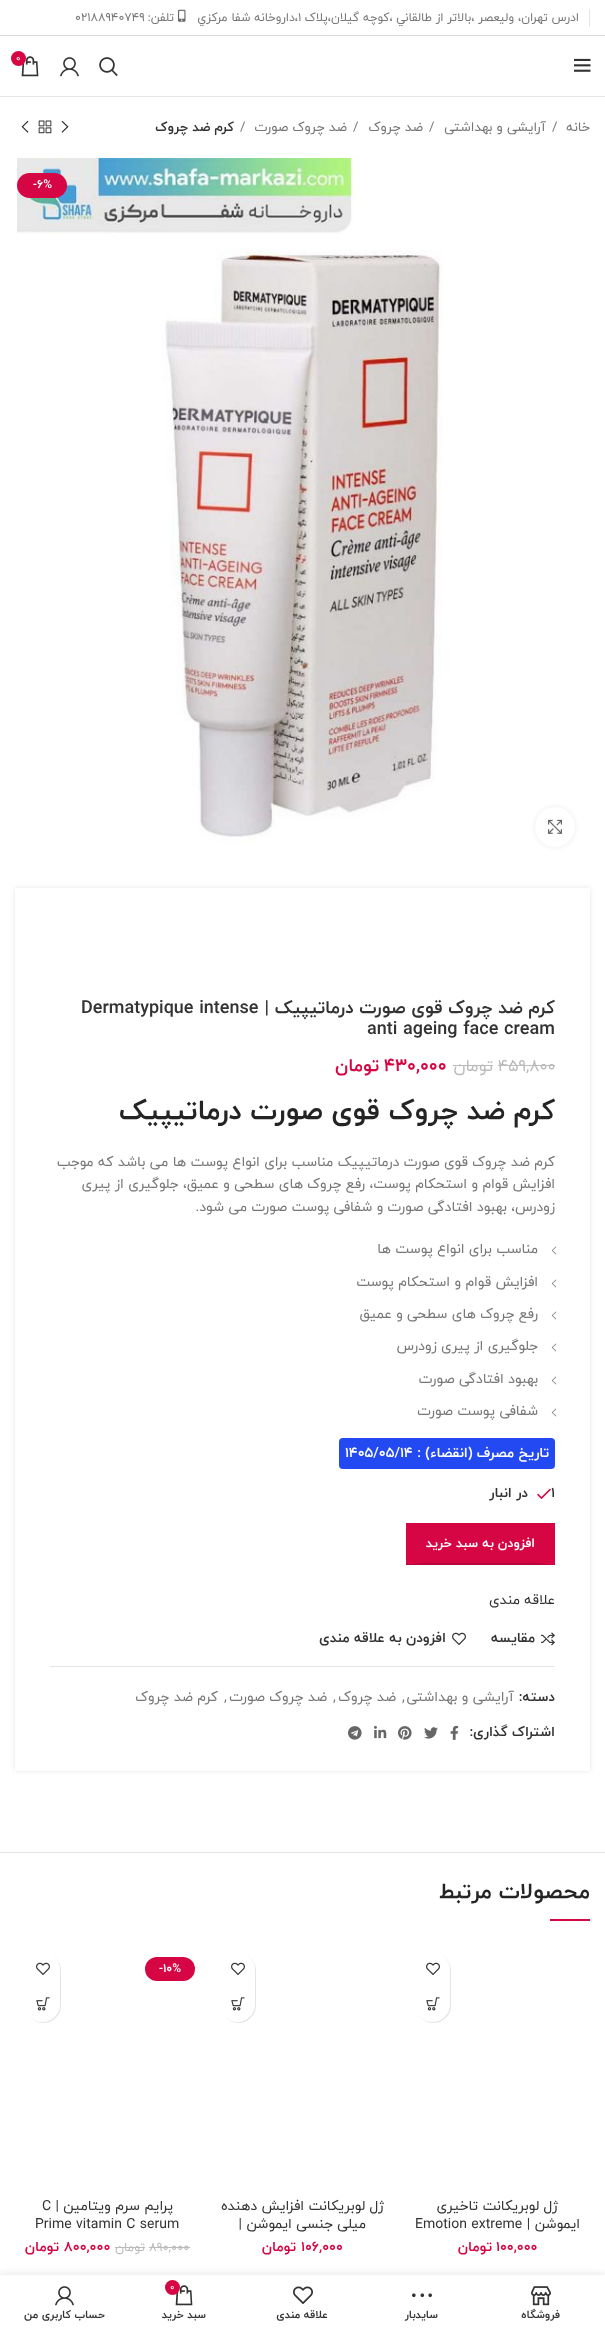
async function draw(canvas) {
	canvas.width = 605;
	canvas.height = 2330;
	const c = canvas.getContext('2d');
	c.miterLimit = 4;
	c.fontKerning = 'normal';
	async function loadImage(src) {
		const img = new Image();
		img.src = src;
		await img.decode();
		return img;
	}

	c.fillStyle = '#fff';
	c.fillRect(0, 0, 605, 2330);
	c.fillStyle = '#d9d9d9';
	c.fillRect(0, 35, 605, 1);
	c.fillStyle = '#e4e4e4';
	c.fillRect(589, 9, 1, 18);
	c.direction = 'rtl';
	c.font = '12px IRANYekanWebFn';
	c.fillStyle = '#777';
	c.fillText('ادرس تهران،', 579, 21);
	c.fillText('وليعصر ،بالاتر از طالقاني ،كوچه گيلان،پلاک', 514, 21);
	c.direction = 'ltr';
	c.fillText('۱', 298, 21);
	c.direction = 'rtl';
	c.fillText('،داروخانه شفا مركزي', 298, 21);
	c.drawImage(await loadImage('img1.png'), 178, 9, 8, 13);
	c.fillText('تلفن:', 174, 21);
	c.direction = 'ltr';
	c.fillText('02188940749', 75, 21);
	c.fillStyle = '#e6e6e6';
	c.fillRect(0, 96, 605, 1);
	c.drawImage(await loadImage('img2.png'), 574, 58, 17, 14);
	c.drawImage(await loadImage('img3.png'), 99, 57, 19, 20);
	c.drawImage(await loadImage('img4.png'), 60, 57, 19, 20);
	c.drawImage(await loadImage('img5.png'), 21, 56, 18, 21);
	c.fillStyle = '#d60644';
	c.beginPath();
	c.arc(18.5, 58.5, 7.5, 0, 2 * Math.PI);
	c.fill();
	c.font = '9px IRANYekanWebFn';
	c.fillStyle = '#fff';
	c.fillText('0', 16, 61);
	c.direction = 'rtl';
	c.font = '13.25px IRANYekanWebFn';
	c.fillStyle = '#777';
	c.fillText('خانه', 590, 131);
	c.direction = 'ltr';
	c.fillText('/', 552, 131);
	c.direction = 'rtl';
	c.fillText('آرایشی و بهداشتی', 546, 131);
	c.direction = 'ltr';
	c.fillText('/', 429, 131);
	c.direction = 'rtl';
	c.fillText('ضد چروک', 423, 131);
	c.direction = 'ltr';
	c.fillText('/', 353, 131);
	c.direction = 'rtl';
	c.fillText('ضد چروک صورت', 347, 131);
	c.direction = 'ltr';
	c.fillText('/', 240, 131);
	c.direction = 'rtl';
	c.font = 'bold 13.25px IRANYekanWebFn';
	c.fillStyle = '#333';
	c.fillText('کرم ضد چروک', 234, 131);
	c.drawImage(await loadImage('img6.png'), 61, 120, 8, 13);
	c.drawImage(await loadImage('img7.png'), 38, 120, 14, 14);
	c.drawImage(await loadImage('img8.png'), 21, 120, 8, 13);
	c.drawImage(await loadImage('img9.png'), 17, 158, 426, 685);
	c.fillStyle = '#d60644';
	c.beginPath();
	c.roundRect(17, 173, 50, 25, 12.5);
	c.fill();
	c.direction = 'ltr';
	c.font = 'bold 12px IRANYekanWebFn';
	c.fillStyle = '#fff';
	c.fillText('-6%', 33, 188);
	c.fillStyle = '#00000014';
	c.filter = 'blur(2.5px)';
	c.beginPath();
	c.roundRect(535, 807, 40, 40, 20);
	c.fill();
	c.filter = 'none';
	c.fillStyle = '#fff';
	c.beginPath();
	c.arc(555, 827, 20, 0, 2 * Math.PI);
	c.fill();
	c.drawImage(await loadImage('img10.png'), 548, 819, 14, 15);
	c.save();
	c.beginPath();
	c.moveTo(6, 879);
	c.lineTo(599, 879);
	c.lineTo(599, 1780);
	c.lineTo(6, 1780);
	c.closePath();
	c.moveTo(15, 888);
	c.lineTo(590, 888);
	c.lineTo(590, 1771);
	c.lineTo(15, 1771);
	c.closePath();
	c.clip('evenodd');
	c.fillStyle = '#0000001a';
	c.filter = 'blur(2.5px)';
	c.beginPath();
	c.rect(15, 888, 575, 883);
	c.fill();
	c.filter = 'none';
	c.restore();
	c.direction = 'rtl';
	c.font = 'bold 18px IRANYekanWebFn';
	c.fillStyle = '#333';
	c.fillText('کرم ضد چروک قوی صورت درماتیپیک |', 555, 1013);
	c.direction = 'ltr';
	c.fillText('Dermatypique intense', 81, 1013);
	c.fillText('anti ageing face cream', 367, 1034);
	c.font = '16.5px IRANYekanWebFn';
	c.fillStyle = '#bbb';
	c.fillText('459,800', 498, 1071);
	c.fillRect(498, 1065, 57, 1);
	c.direction = 'rtl';
	c.fillText('تومان', 493, 1071);
	c.fillRect(453, 1065, 40, 1);
	c.direction = 'ltr';
	c.font = 'bold 18px IRANYekanWebFn';
	c.fillStyle = '#d60644';
	c.fillText('430,000', 384, 1071);
	c.direction = 'rtl';
	c.fillText('تومان', 379, 1071);
	c.font = 'bold 28px IRANYekanWebFn';
	c.fillStyle = '#242424';
	c.fillText('کرم ضد چروک قوی صورت درماتیپیک', 555, 1119);
	c.font = '14px IRANYekanWebFn';
	c.fillStyle = '#777';
	for (const [text, x, y] of [
		['کرم ضد چروک قوی صورت درماتیپیک مناسب برای انواع پوست ها می باشد که موجب', 555, 1166],
		['افزایش قوام و استحکام پوست، رفع چروک های سطحی و عمیق، جلوگیری از پیری', 555, 1188],
		['زودرس، بهبود افتادگی صورت و شفافی پوست صورت می شود.', 555, 1211],
	]) {
		c.fillText(text, x, y);
	}
	c.drawImage(await loadImage('img11.png'), 551, 1246, 6, 9);
	c.fillText('مناسب برای انواع پوست ها', 538, 1253);
	c.drawImage(await loadImage('img11.png'), 551, 1279, 6, 9);
	c.fillText('افزایش قوام و استحکام پوست', 538, 1286);
	c.drawImage(await loadImage('img11.png'), 551, 1311, 6, 9);
	c.fillText('رفع چروک های سطحی و عمیق', 538, 1318);
	c.drawImage(await loadImage('img11.png'), 551, 1343, 6, 9);
	c.fillText('جلوگیری از پیری زودرس', 538, 1350);
	c.drawImage(await loadImage('img11.png'), 551, 1376, 6, 9);
	c.fillText('بهبود افتادگی صورت', 538, 1383);
	c.drawImage(await loadImage('img11.png'), 551, 1408, 6, 9);
	c.fillText('شفافی پوست صورت', 538, 1415);
	c.fillStyle = '#234af2';
	c.beginPath();
	c.roundRect(413, 1438, 142, 31, [0, 4, 4, 0]);
	c.fill();
	c.font = 'bold 14px IRANYekanWebFn';
	c.fillStyle = '#fff';
	c.fillText('تاریخ مصرف (انقضاء) :', 549, 1457);
	c.fillStyle = '#234af2';
	c.beginPath();
	c.roundRect(339, 1438, 74, 31, [4, 0, 0, 4]);
	c.fill();
	c.direction = 'ltr';
	c.fillStyle = '#fff';
	c.fillText('1405/05/14', 345, 1457);
	c.fillStyle = '#333';
	c.fillText('1', 551, 1497);
	c.drawImage(await loadImage('img12.png'), 537, 1488, 14, 12);
	c.direction = 'rtl';
	c.fillText('در انبار', 528, 1497);
	c.fillStyle = '#d60644';
	c.fillRect(406, 1523, 149, 42);
	c.save();
	c.beginPath();
	c.rect(406, 1523, 149, 42);
	c.clip();
	c.fillStyle = '#b6053a';
	c.beginPath();
	c.moveTo(307, 1424);
	c.lineTo(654, 1424);
	c.lineTo(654, 1664);
	c.lineTo(307, 1664);
	c.closePath();
	c.moveTo(406, 1521);
	c.lineTo(530, 1521);
	c.bezierCurveTo(560, 1521, 555, 1513, 555, 1535);
	c.lineTo(555, 1556);
	c.bezierCurveTo(555, 1571, 557, 1563, 530, 1563);
	c.lineTo(431, 1563);
	c.bezierCurveTo(401, 1563, 406, 1571, 406, 1549);
	c.closePath();
	c.fill('evenodd');
	c.restore();
	c.font = 'bold 13px IRANYekanWebFn';
	c.fillStyle = '#fff';
	c.fillText('افزودن به سبد خرید', 535, 1547);
	c.font = '14px IRANYekanWebFn';
	c.fillStyle = '#333';
	c.fillText('علاقه مندی', 555, 1604);
	c.drawImage(await loadImage('img13.png'), 541, 1632, 14, 14);
	c.font = 'bold 14px IRANYekanWebFn';
	c.fillText('مقایسه', 535, 1642);
	c.drawImage(await loadImage('img14.png'), 452, 1632, 14, 13);
	c.fillText('افزودن به علاقه مندی', 446, 1642);
	c.fillStyle = '#e4e4e4';
	c.fillRect(50, 1666, 505, 1);
	c.fillStyle = '#333';
	c.fillText('دسته:', 555, 1701);
	c.font = '14px IRANYekanWebFn';
	c.fillStyle = '#777';
	c.fillText('آرایشی و بهداشتی', 514, 1701);
	c.direction = 'ltr';
	c.fillText(',', 402, 1701);
	c.direction = 'rtl';
	c.fillText('ضد چروک', 396, 1701);
	c.direction = 'ltr';
	c.fillText(',', 333, 1701);
	c.direction = 'rtl';
	c.fillText('ضد چروک صورت', 327, 1701);
	c.direction = 'ltr';
	c.fillText(',', 224, 1701);
	c.direction = 'rtl';
	c.fillText('کرم ضد چروک', 218, 1701);
	c.font = 'bold 14px IRANYekanWebFn';
	c.fillStyle = '#333';
	c.fillText('اشتراک گذاری:', 555, 1736);
	c.drawImage(await loadImage('img15.png'), 450, 1725, 9, 15);
	c.drawImage(await loadImage('img16.png'), 424, 1727, 14, 12);
	c.drawImage(await loadImage('img17.png'), 398, 1726, 14, 14);
	c.drawImage(await loadImage('img18.png'), 374, 1725, 13, 14);
	c.drawImage(await loadImage('img19.png'), 348, 1726, 14, 14);
	c.fillStyle = '#e4e4e4';
	c.fillRect(0, 1852, 605, 1);
	c.font = 'bold 22px IRANYekanWebFn';
	c.fillStyle = '#242424';
	c.fillText('محصولات مرتبط', 590, 1898);
	c.fillStyle = '#d60644';
	c.fillRect(550, 1919, 40, 2);
	c.fillStyle = '#0000001a';
	c.filter = 'blur(0.5px)';
	c.beginPath();
	c.roundRect(416, 1953, 35, 70, 17.5);
	c.fill();
	c.filter = 'none';
	c.fillStyle = '#fff';
	c.beginPath();
	c.roundRect(415, 1952, 35, 70, 17.5);
	c.fill();
	c.drawImage(await loadImage('img14.png'), 426, 1962, 14, 13);
	c.drawImage(await loadImage('img20.png'), 426, 1997, 14, 14);
	c.font = '14px IRANYekanWebFn';
	c.fillStyle = '#333';
	c.fillText('ژل لوبریکانت تاخیری', 558, 2210);
	c.fillText('ایموشن |', 580, 2228);
	c.direction = 'ltr';
	c.fillText('Emotion extreme', 415, 2228);
	c.font = 'bold 14px IRANYekanWebFn';
	c.fillStyle = '#d60644';
	c.fillText('100,000', 496, 2251);
	c.direction = 'rtl';
	c.fillText('تومان', 492, 2251);
	c.fillStyle = '#0000001a';
	c.filter = 'blur(0.5px)';
	c.beginPath();
	c.roundRect(221, 1953, 35, 70, 17.5);
	c.fill();
	c.filter = 'none';
	c.fillStyle = '#fff';
	c.beginPath();
	c.roundRect(220, 1952, 35, 70, 17.5);
	c.fill();
	c.drawImage(await loadImage('img14.png'), 231, 1962, 14, 13);
	c.drawImage(await loadImage('img20.png'), 231, 1997, 14, 14);
	c.font = '14px IRANYekanWebFn';
	c.fillStyle = '#333';
	c.fillText('ژل لوبریکانت افزایش دهنده', 384, 2210);
	c.fillText('میلی جنسی ایموشن |', 366, 2228);
	c.direction = 'ltr';
	c.font = 'bold 14px IRANYekanWebFn';
	c.fillStyle = '#d60644';
	c.fillText('106,000', 301, 2251);
	c.direction = 'rtl';
	c.fillText('تومان', 296, 2251);
	c.beginPath();
	c.roundRect(145, 1957, 50, 24, 12);
	c.fill();
	c.direction = 'ltr';
	c.font = 'bold 12px IRANYekanWebFn';
	c.fillStyle = '#fff';
	c.fillText('-10%', 159, 1972);
	c.fillStyle = '#0000001a';
	c.filter = 'blur(0.5px)';
	c.beginPath();
	c.roundRect(26, 1953, 35, 70, 17.5);
	c.fill();
	c.filter = 'none';
	c.fillStyle = '#fff';
	c.beginPath();
	c.roundRect(25, 1952, 35, 70, 17.5);
	c.fill();
	c.drawImage(await loadImage('img14.png'), 36, 1962, 14, 13);
	c.drawImage(await loadImage('img20.png'), 36, 1997, 14, 14);
	c.direction = 'rtl';
	c.font = '14px IRANYekanWebFn';
	c.fillStyle = '#333';
	c.fillText('پرایم سرم ویتامین', 173, 2210);
	c.direction = 'ltr';
	c.fillText('C |', 42, 2210);
	c.fillText('Prime vitamin C serum', 35, 2228);
	c.font = '12.5px IRANYekanWebFn';
	c.fillStyle = '#bbb';
	c.fillText('890,000', 149, 2251);
	c.fillRect(149, 2247, 41, 1);
	c.direction = 'rtl';
	c.fillText('تومان', 145, 2251);
	c.fillRect(115, 2247, 30, 1);
	c.direction = 'ltr';
	c.font = 'bold 14px IRANYekanWebFn';
	c.fillStyle = '#d60644';
	c.fillText('800,000', 64, 2251);
	c.direction = 'rtl';
	c.fillText('تومان', 59, 2251);
	c.fillStyle = '#0000001f';
	c.filter = 'blur(4.5px)';
	c.beginPath();
	c.rect(0, 2275, 605, 55);
	c.fill();
	c.filter = 'none';
	c.fillStyle = '#fff';
	c.fillRect(0, 2275, 605, 55);
	c.drawImage(await loadImage('img21.png'), 531, 2286, 20, 20);
	c.font = 'bold 11px IRANYekanWebFn';
	c.fillStyle = '#333';
	c.fillText('فروشگاه', 560, 2318);
	c.drawImage(await loadImage('img22.png'), 412, 2293, 20, 5);
	c.fillText('سایدبار', 438, 2318);
	c.drawImage(await loadImage('img23.png'), 293, 2286, 20, 18);
	c.fillText('علاقه مندی', 328, 2318);
	c.drawImage(await loadImage('img5.png'), 175, 2285, 18, 21);
	c.fillStyle = '#d60644';
	c.beginPath();
	c.arc(172.5, 2287.5, 7.5, 0, 2 * Math.PI);
	c.fill();
	c.direction = 'ltr';
	c.font = '9px IRANYekanWebFn';
	c.fillStyle = '#fff';
	c.fillText('0', 170, 2290);
	c.direction = 'rtl';
	c.font = 'bold 11px IRANYekanWebFn';
	c.fillStyle = '#333';
	c.fillText('سبد خرید', 206, 2318);
	c.drawImage(await loadImage('img4.png'), 55, 2286, 19, 20);
	c.fillText('حساب کاربری من', 105, 2318);
}

draw(document.querySelector('canvas'));
